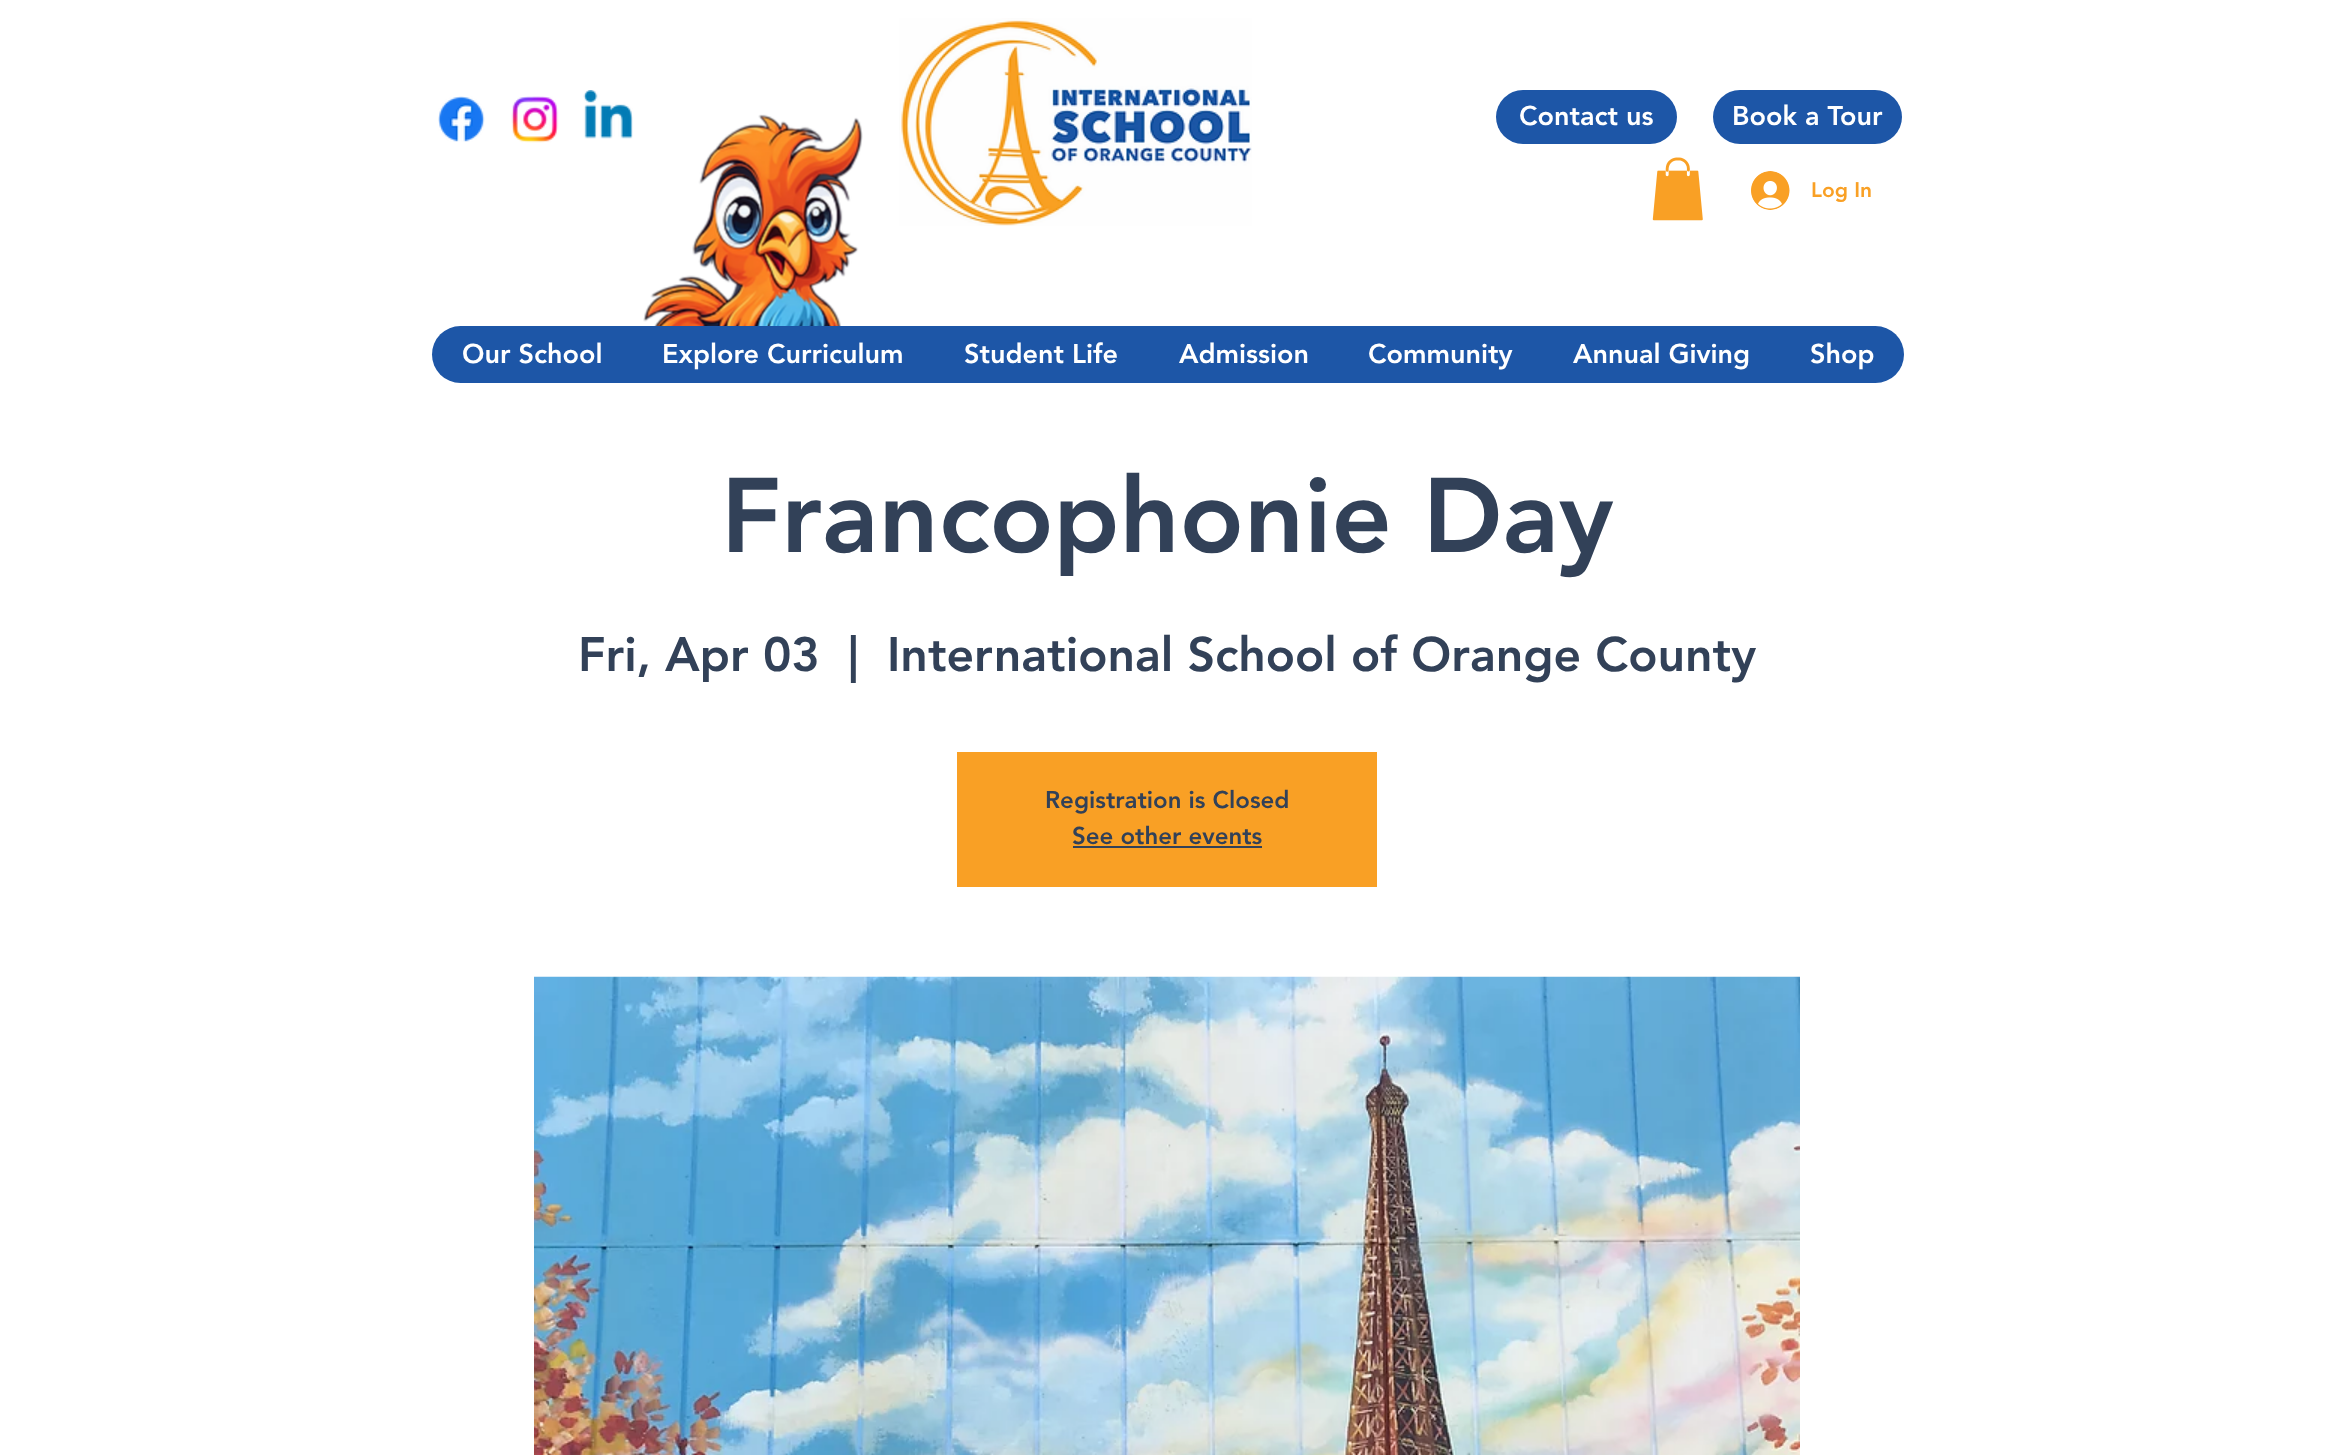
async function draw(canvas) {
	canvas.width = 2333;
	canvas.height = 1455;
	const c = canvas.getContext('2d');
	c.miterLimit = 4;
	c.fontKerning = 'normal';
	async function loadImage(src) {
		const img = new Image();
		img.src = src;
		await img.decode();
		return img;
	}

	c.fillStyle = '#fff';
	c.fillRect(0, 0, 2333, 1455);
	c.drawImage(await loadImage('img1.png'), 438, 96, 47, 46);
	c.drawImage(await loadImage('img2.png'), 511, 96, 48, 47);
	c.drawImage(await loadImage('img3.png'), 583, 90, 50, 49);
	c.drawImage(await loadImage('img4.png'), 643, 114, 220, 212);
	c.drawImage(await loadImage('img5.png'), 899, 18, 353, 208);
	c.fillStyle = '#1d56a7';
	c.beginPath();
	c.roundRect(1496, 90, 181, 54, 27);
	c.fill();
	c.font = '900 27px "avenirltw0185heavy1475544"';
	c.fillStyle = '#fff';
	c.fillText('Contact us', 1519, 125);
	c.drawImage(await loadImage('img6.png'), 1652, 157, 51, 64);
	c.fillStyle = '#1d56a7';
	c.beginPath();
	c.roundRect(1713, 90, 189, 54, 27);
	c.fill();
	c.fillStyle = '#fff';
	c.fillText('Book a Tour', 1732, 125);
	c.drawImage(await loadImage('img7.png'), 1751, 171, 39, 39);
	c.font = '900 21px "avenirltw0185heavy1475544"';
	c.fillStyle = '#f9a025';
	c.fillText('Log In', 1811, 197);
	c.fillStyle = '#1d56a7';
	c.beginPath();
	c.roundRect(432, 326, 1472, 57, 28.5);
	c.fill();
	c.font = '900 27px "avenirltw0185heavy1475544"';
	c.fillStyle = '#fff';
	for (const [text, x, y] of [
		['Our School', 462, 363],
		['Explore Curriculum', 662, 363],
		['Student Life', 964, 363],
		['Admission', 1179, 363],
		['Community', 1368, 363],
		['Annual Giving', 1573, 363],
		['Shop', 1810, 363],
	]) {
		c.fillText(text, x, y);
	}
	c.font = '900 105px "avenirltw0185heavy1475544"';
	c.fillStyle = '#324158';
	c.fillText('Francophonie Day', 721, 552);
	c.font = '900 48px "avenirltw0185heavy1475544"';
	for (const [text, x, y] of [
		['Fri, Apr 03', 578, 671],
		['|', 848, 671],
		['International School of Orange County', 887, 671],
	]) {
		c.fillText(text, x, y);
	}
	c.fillStyle = '#f9a025';
	c.fillRect(957, 752, 420, 135);
	c.font = '900 24px "avenirltw0185heavy1475544"';
	c.fillStyle = '#324158';
	c.fillText('Registration is Closed', 1045, 808);
	c.fillText('See other events', 1072, 844);
	c.fillRect(1073, 846, 189, 2);
	c.drawImage(await loadImage('img8.png'), 534, 976, 1266, 479);
}

draw(document.querySelector('canvas'));
